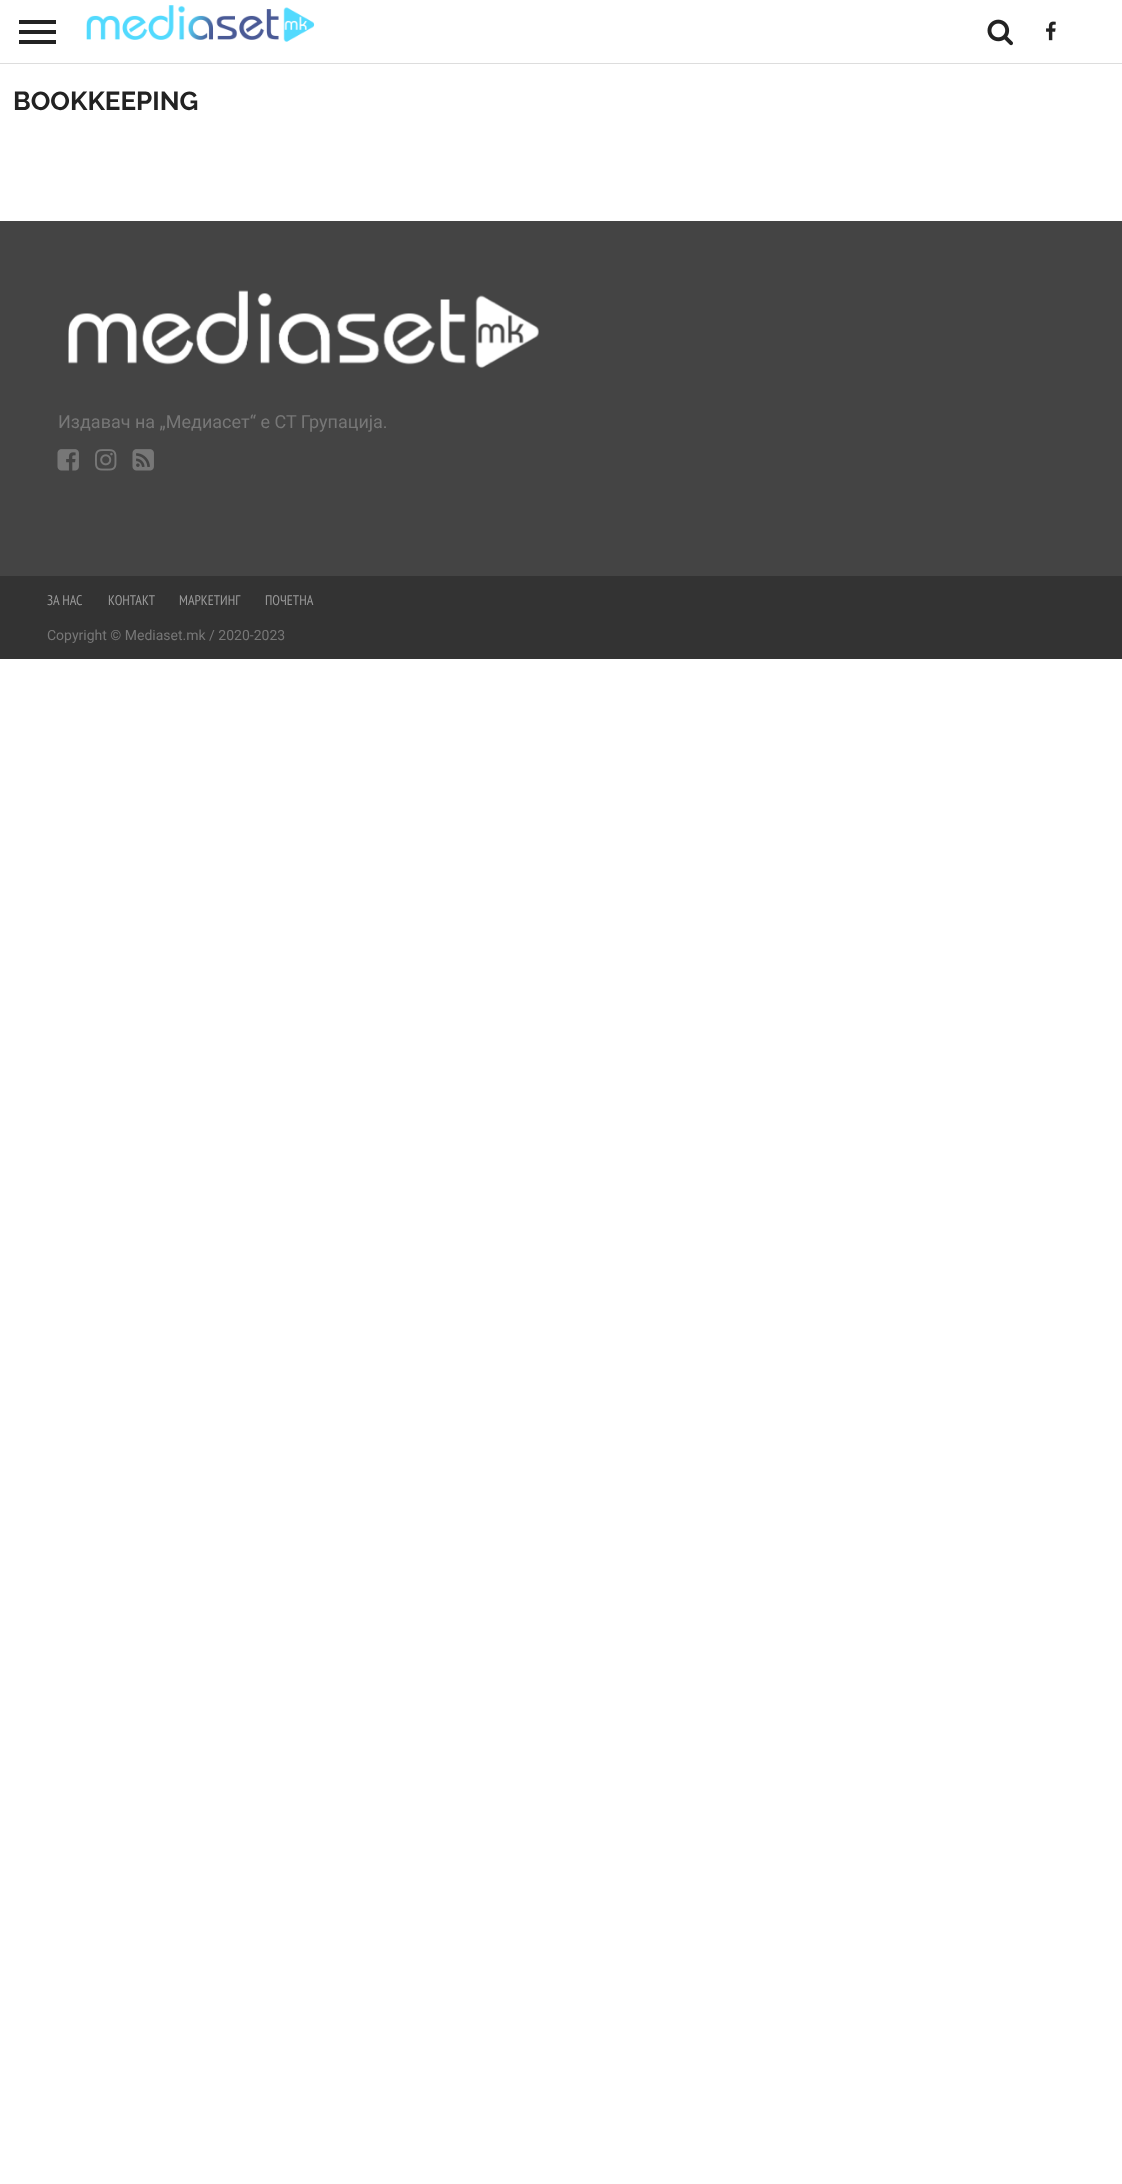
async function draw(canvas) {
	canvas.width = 1122;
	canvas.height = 2184;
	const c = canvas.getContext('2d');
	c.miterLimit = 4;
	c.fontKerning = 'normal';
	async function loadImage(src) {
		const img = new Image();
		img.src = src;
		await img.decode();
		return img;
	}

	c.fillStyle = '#fff';
	c.fillRect(0, 0, 1122, 2184);
	for (const [x, y, w, h, color] of [
		[0, 63, 1122, 1, '#ddd'],
		[19, 20, 37, 4, '#222'],
		[19, 30, 37, 4, '#222'],
		[19, 40, 37, 4, '#222'],
	]) {
		c.fillStyle = color;
		c.fillRect(x, y, w, h);
	}
	c.drawImage(await loadImage('img1.png'), 86, 5, 229, 37);
	c.drawImage(await loadImage('img2.png'), 987, 19, 26, 27);
	c.drawImage(await loadImage('img3.png'), 1046, 21, 10, 20);
	c.font = 'bold 26px Raleway';
	c.fillText('BOOKKEEPING', 13, 110);
	c.fillStyle = '#444';
	c.fillRect(0, 221, 1122, 355);
	c.drawImage(await loadImage('img4.png'), 68, 290, 471, 78);
	c.font = '18px Roboto';
	c.fillStyle = '#777';
	c.fillText('Издавач на „Медиасет“ е СТ Групација.', 58, 428);
	c.drawImage(await loadImage('img5.png'), 57, 449, 22, 22);
	c.drawImage(await loadImage('img6.png'), 95, 449, 22, 22);
	c.drawImage(await loadImage('img7.png'), 132, 449, 22, 22);
	c.fillStyle = '#333';
	c.fillRect(0, 576, 1122, 83);
	c.font = '14px PT Sans Narrow';
	c.fillStyle = '#999';
	for (const [text, x, y] of [
		['ЗА НАС', 47, 605],
		['КОНТАКТ', 108, 605],
		['МАРКЕТИНГ', 179, 605],
		['ПОЧЕТНА', 265, 605],
	]) {
		c.fillText(text, x, y);
	}
	c.font = '14px Roboto';
	c.fillStyle = '#777';
	c.fillText('Copyright © Mediaset.mk / 2020-2023', 47, 640);
}

draw(document.querySelector('canvas'));
